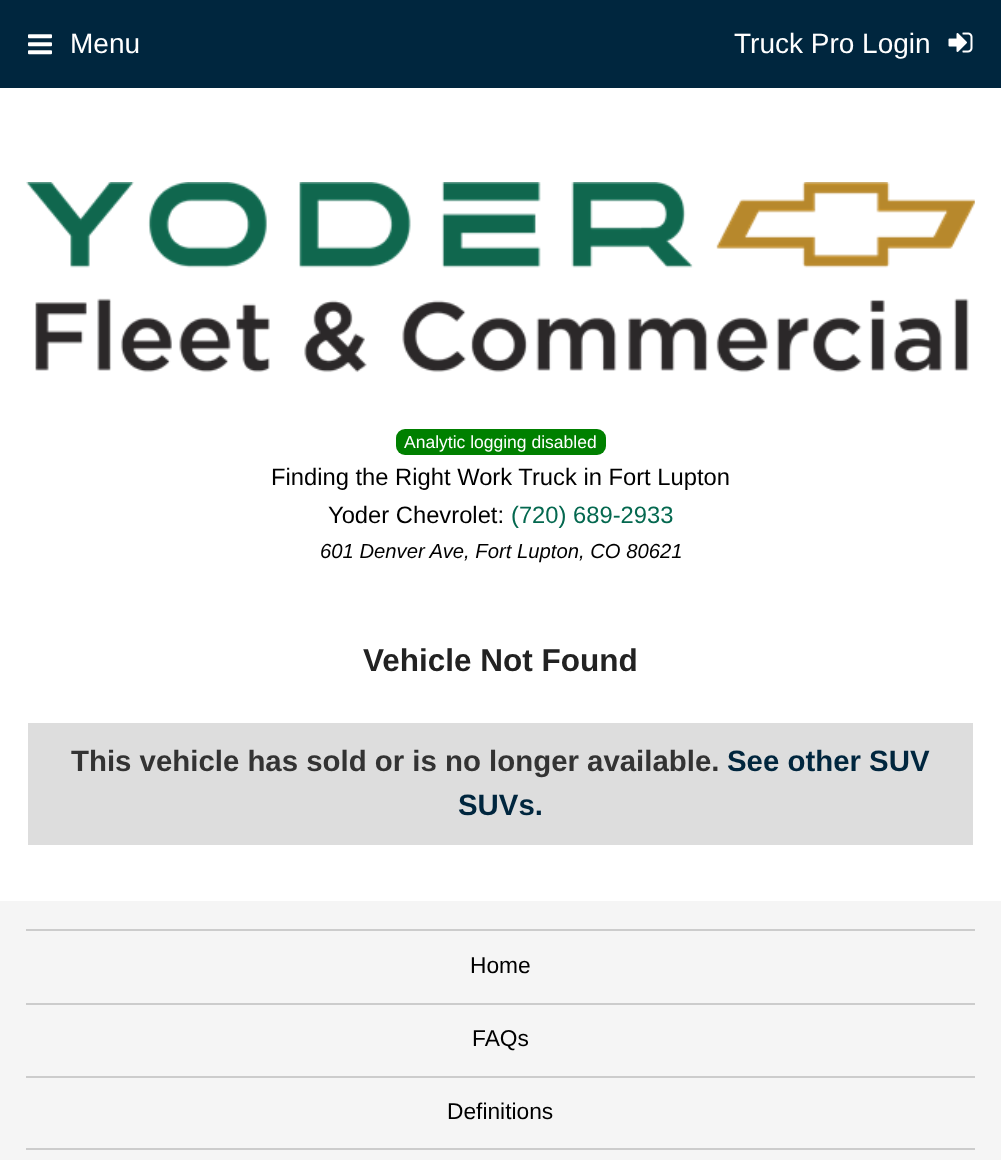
async function draw(canvas) {
	canvas.width = 1001;
	canvas.height = 1160;
	const c = canvas.getContext('2d');
	c.miterLimit = 4;
	c.fontKerning = 'normal';
	async function loadImage(src) {
		const img = new Image();
		img.src = src;
		await img.decode();
		return img;
	}

	c.fillStyle = '#f5f5f5';
	c.fillRect(0, 0, 1001, 1160);
	c.fillStyle = '#00263e';
	c.fillRect(0, 0, 1001, 88);
	c.drawImage(await loadImage('img1.png'), 28, 34, 24, 21);
	c.font = '28px Liberation Sans';
	c.fillStyle = '#fff';
	c.fillText('Menu', 70, 53);
	c.fillText('Truck Pro Login', 734, 53);
	c.drawImage(await loadImage('img2.png'), 948, 32, 25, 21);
	c.fillRect(0, 88, 1001, 813);
	c.drawImage(await loadImage('img3.png'), 26, 182, 949, 191);
	c.fillStyle = '#008000';
	c.beginPath();
	c.roundRect(396, 429, 210, 26, 9);
	c.fill();
	c.font = '17.5px Liberation Sans';
	c.fillStyle = '#fff';
	c.fillText('Analytic logging disabled', 404, 448);
	c.font = '23.75px Liberation Sans';
	c.fillStyle = '#000';
	c.fillText('Finding the Right Work Truck in Fort Lupton', 271, 485);
	c.fillText('Yoder Chevrolet:', 328, 523);
	c.fillStyle = '#04684f';
	c.fillText('(720) 689-2933', 511, 523);
	c.font = 'italic 20.25px Liberation Sans';
	c.fillStyle = '#000';
	c.fillText('601 Denver Ave, Fort Lupton, CO 80621', 320, 558);
	c.font = 'bold 31.5px Liberation Sans';
	c.fillStyle = '#222';
	c.fillText('Vehicle Not Found', 363, 671);
	c.fillStyle = '#ddd';
	c.fillRect(28, 723, 945, 122);
	c.font = 'bold 29.4px Liberation Sans';
	c.fillStyle = '#333';
	c.fillText('This vehicle has sold or is no longer available.', 71, 771);
	c.fillStyle = '#00263e';
	c.fillText('See other SUV', 727, 771);
	c.fillText('SUVs.', 458, 815);
	c.fillStyle = '#ccc';
	c.fillRect(26, 929, 949, 2);
	c.font = '22.75px Liberation Sans';
	c.fillStyle = '#000';
	c.fillText('Home', 470, 973);
	c.fillStyle = '#ccc';
	c.fillRect(26, 1003, 949, 2);
	c.fillStyle = '#000';
	c.fillText('FAQs', 472, 1046);
	c.fillStyle = '#ccc';
	c.fillRect(26, 1076, 949, 2);
	c.fillStyle = '#000';
	c.fillText('Definitions', 447, 1119);
	c.fillStyle = '#ccc';
	c.fillRect(26, 1148, 949, 2);
}

draw(document.querySelector('canvas'));
